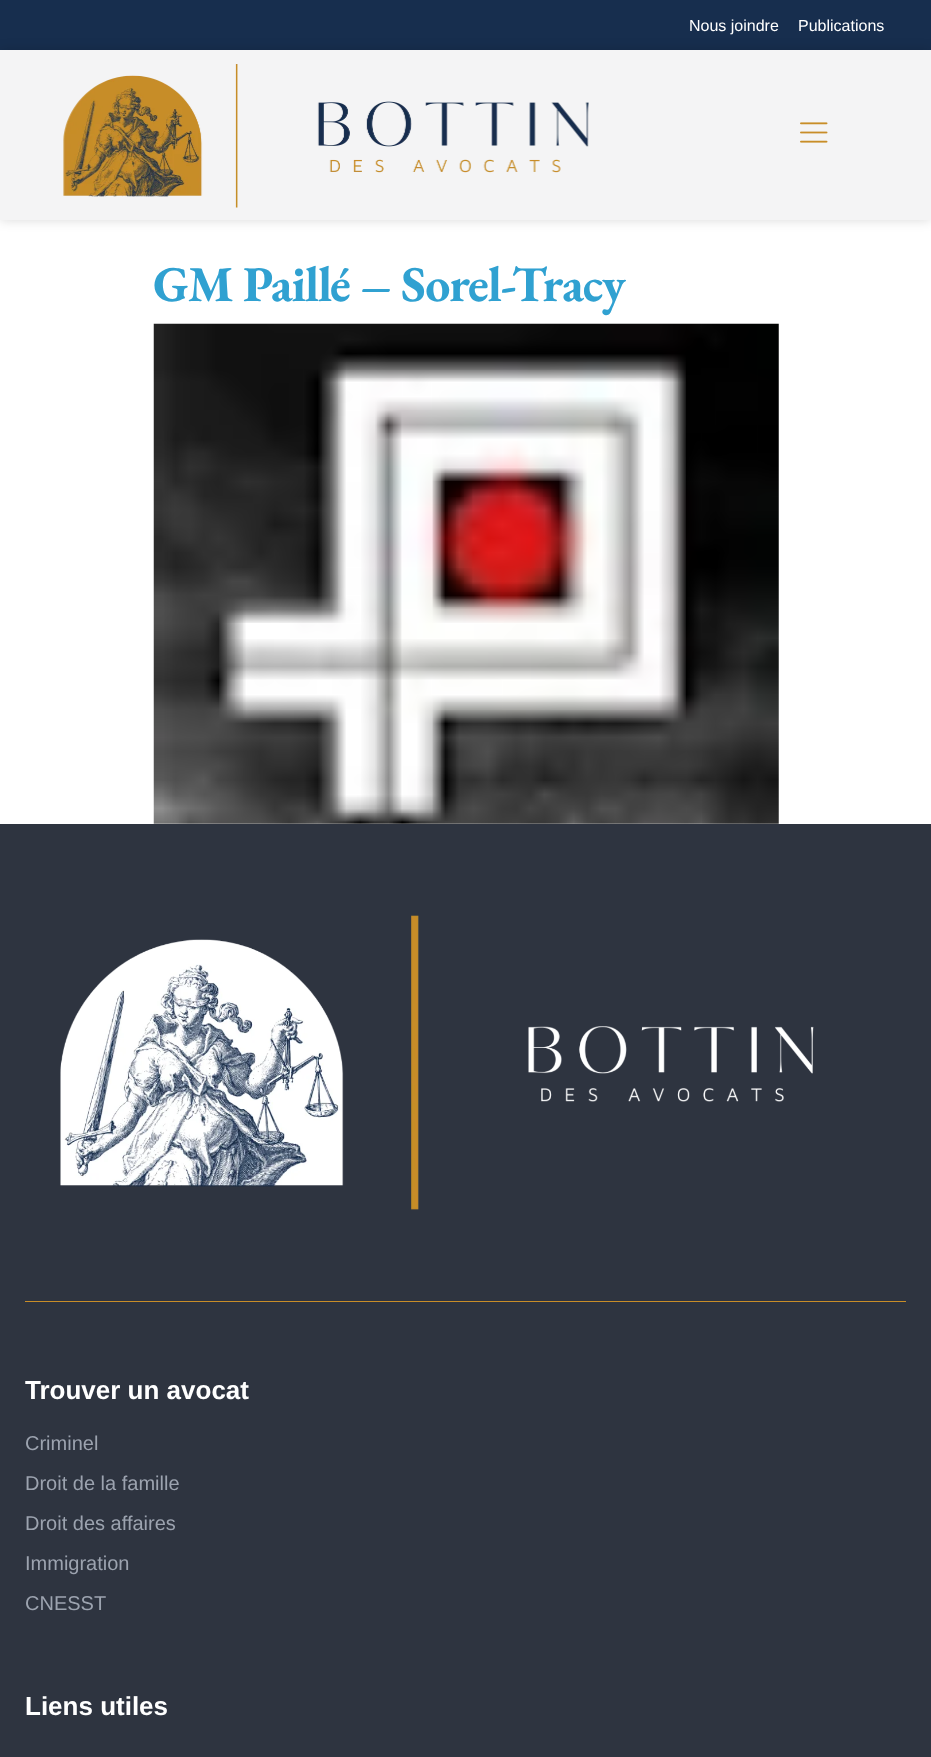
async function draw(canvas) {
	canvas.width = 931;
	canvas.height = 1757;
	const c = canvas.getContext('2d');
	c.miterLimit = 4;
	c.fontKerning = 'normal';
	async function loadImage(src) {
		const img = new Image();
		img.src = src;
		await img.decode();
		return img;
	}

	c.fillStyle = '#fff';
	c.fillRect(0, 0, 931, 1757);
	c.fillStyle = '#172e4e';
	c.fillRect(0, 0, 931, 50);
	c.font = '16px Liberation Sans';
	c.fillStyle = '#fff';
	c.fillText('Nous joindre', 689, 31);
	c.fillText('Publications', 798, 31);
	c.fillStyle = '#00000026';
	c.filter = 'blur(6px)';
	c.beginPath();
	c.rect(0, 50, 931, 170);
	c.fill();
	c.filter = 'none';
	c.fillStyle = '#f4f4f5';
	c.fillRect(0, 50, 931, 170);
	c.drawImage(await loadImage('img1.png'), 63, 64, 526, 144);
	c.drawImage(await loadImage('img2.png'), 800, 122, 28, 21);
	c.letterSpacing = '-1.25px';
	c.font = 'bold 50px EB Garamond';
	c.fillStyle = '#30a1d1';
	c.fillText('GM Paillé – Sorel-Tracy', 153, 301);
	c.drawImage(await loadImage('img3.png'), 153, 323, 626, 501);
	c.fillStyle = '#2e3440';
	c.fillRect(0, 824, 931, 933);
	c.drawImage(await loadImage('img4.png'), 60, 915, 754, 295);
	c.fillStyle = '#c88d28';
	c.fillRect(25, 1301, 881, 1);
	c.letterSpacing = '0px';
	c.font = 'bold 26px Liberation Sans';
	c.fillStyle = '#fff';
	c.fillText('Trouver un avocat', 25, 1399);
	c.font = '20px Liberation Sans';
	c.fillStyle = '#9ca3af';
	for (const [text, x, y] of [
		['Criminel', 25, 1450],
		['Droit de la famille', 25, 1490],
		['Droit des affaires', 25, 1530],
		['Immigration', 25, 1570],
		['CNESST', 25, 1610],
	]) {
		c.fillText(text, x, y);
	}
	c.font = 'bold 26px Liberation Sans';
	c.fillStyle = '#fff';
	c.fillText('Liens utiles', 25, 1715);
}

draw(document.querySelector('canvas'));
